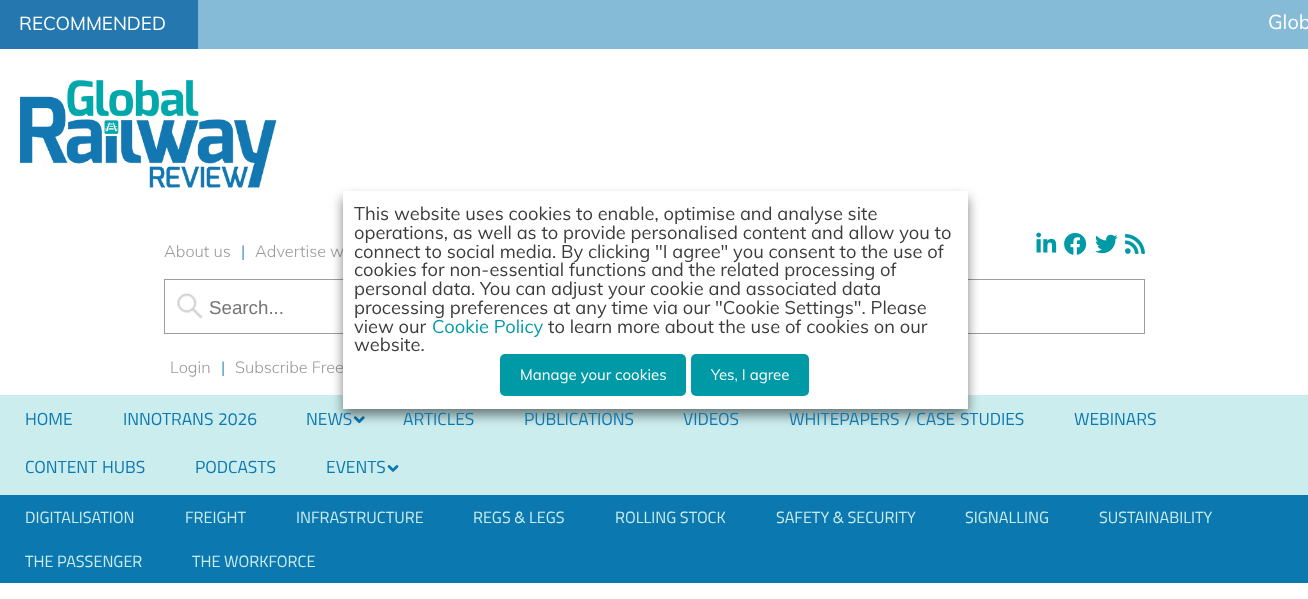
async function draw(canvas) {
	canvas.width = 1308;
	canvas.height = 599;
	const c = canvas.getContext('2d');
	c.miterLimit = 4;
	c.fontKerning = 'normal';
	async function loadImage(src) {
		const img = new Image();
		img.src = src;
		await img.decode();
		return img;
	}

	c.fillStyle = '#fff';
	c.fillRect(0, 0, 1308, 599);
	c.fillStyle = '#85bbd6';
	c.fillRect(198, 0, 1110, 49);
	c.fillStyle = '#2478af';
	c.fillRect(0, 0, 198, 49);
	c.font = '18.75px Muli';
	c.fillStyle = '#fff';
	c.fillText('RECOMMENDED', 19, 30);
	c.font = '20px Muli';
	c.fillText('Glob', 1268, 29);
	c.drawImage(await loadImage('img1.png'), 20, 80, 257, 108);
	c.font = '300 16.25px Muli';
	c.fillStyle = '#999';
	c.fillText('About us', 164, 257);
	c.fillStyle = '#0b78b0';
	c.fillText('|', 241, 257);
	c.fillStyle = '#999';
	c.fillText('Advertise w', 255, 257);
	c.drawImage(await loadImage('img2.png'), 1036, 232, 21, 21);
	c.drawImage(await loadImage('img3.png'), 1064, 233, 23, 22);
	c.drawImage(await loadImage('img4.png'), 1095, 234, 23, 20);
	c.drawImage(await loadImage('img5.png'), 1125, 234, 20, 20);
	c.drawImage(await loadImage('img6.png'), 177, 293, 26, 26);
	c.strokeStyle = '#9d9d9d';
	c.strokeRect(164.5, 279.5, 980, 54);
	c.font = '18.75px Liberation Sans';
	c.fillStyle = '#757575';
	c.fillText('Search...', 209, 314);
	c.font = '300 16.25px Muli';
	c.fillStyle = '#999';
	c.fillText('Login', 170, 373);
	c.fillStyle = '#0b78b0';
	c.fillText('|', 221, 373);
	c.fillStyle = '#999';
	c.fillText('Subscribe Free', 235, 373);
	c.fillStyle = '#ccedee';
	c.fillRect(0, 395, 1308, 100);
	c.drawImage(await loadImage('img7.png'), 353, 416, 12, 8);
	c.fillStyle = '#00000080';
	c.filter = 'blur(6px)';
	c.beginPath();
	c.rect(343, 198, 625, 217);
	c.fill();
	c.filter = 'none';
	c.fillStyle = '#fff';
	c.fillRect(343, 191, 625, 218);
	c.font = '18.3px Muli';
	c.fillStyle = '#3c3c3b';
	for (const [text, x, y] of [
		['This website uses cookies to enable, optimise and analyse site', 354, 220],
		['operations, as well as to provide personalised content and allow you to', 354, 239],
		['connect to social media. By clicking "I agree" you consent to the use of', 354, 258],
		['cookies for non-essential functions and the related processing of', 354, 276],
		['personal data. You can adjust your cookie and associated data', 354, 295],
		['processing preferences at any time via our "Cookie Settings". Please', 354, 314],
		['view our', 354, 333],
	]) {
		c.fillText(text, x, y);
	}
	c.fillStyle = '#009aa6';
	c.fillText('Cookie Policy', 432, 333);
	c.fillStyle = '#3c3c3b';
	c.fillText('to learn more about the use of cookies on our', 548, 333);
	c.fillText('website.', 354, 351);
	c.fillStyle = '#009aa6';
	c.beginPath();
	c.roundRect(500, 354, 186, 42, 5);
	c.fill();
	c.font = '15px Muli';
	c.fillStyle = '#fff';
	c.fillText('Manage your cookies', 520, 380);
	c.fillStyle = '#009aa6';
	c.beginPath();
	c.roundRect(691, 354, 118, 42, 5);
	c.fill();
	c.fillStyle = '#fff';
	c.fillText('Yes, I agree', 711, 380);
	c.letterSpacing = '-0.05px';
	c.font = '17.5px Titillium Web';
	c.fillStyle = '#0b78b0';
	c.fillText('HOME', 25, 425);
	c.wordSpacing = '1px';
	c.fillText('INNOTRANS 2026', 123, 425);
	c.wordSpacing = '0px';
	for (const [text, x, y] of [
		['NEWS', 306, 425],
		['ARTICLES', 403, 425],
		['PUBLICATIONS', 524, 425],
		['VIDEOS', 683, 425],
	]) {
		c.fillText(text, x, y);
	}
	c.wordSpacing = '1px';
	c.fillText('WHITEPAPERS / CASE STUDIES', 789, 425);
	c.wordSpacing = '0px';
	c.fillText('WEBINARS', 1074, 425);
	c.wordSpacing = '1px';
	c.fillText('CONTENT HUBS', 25, 473);
	c.wordSpacing = '0px';
	c.fillText('PODCASTS', 195, 473);
	c.fillText('EVENTS', 326, 473);
	c.drawImage(await loadImage('img8.png'), 387, 465, 12, 7);
	c.fillRect(0, 495, 1308, 88);
	c.letterSpacing = '0px';
	c.font = '16.25px Titillium Web';
	c.fillStyle = '#ccedee';
	for (const [text, x, y] of [
		['DIGITALISATION', 25, 523],
		['FREIGHT', 185, 523],
		['INFRASTRUCTURE', 296, 523],
		['REGS & LEGS', 473, 523],
		['ROLLING STOCK', 615, 523],
		['SAFETY & SECURITY', 776, 523],
		['SIGNALLING', 965, 523],
		['SUSTAINABILITY', 1099, 523],
		['THE PASSENGER', 25, 567],
		['THE WORKFORCE', 192, 567],
	]) {
		c.fillText(text, x, y);
	}
}

draw(document.querySelector('canvas'));
